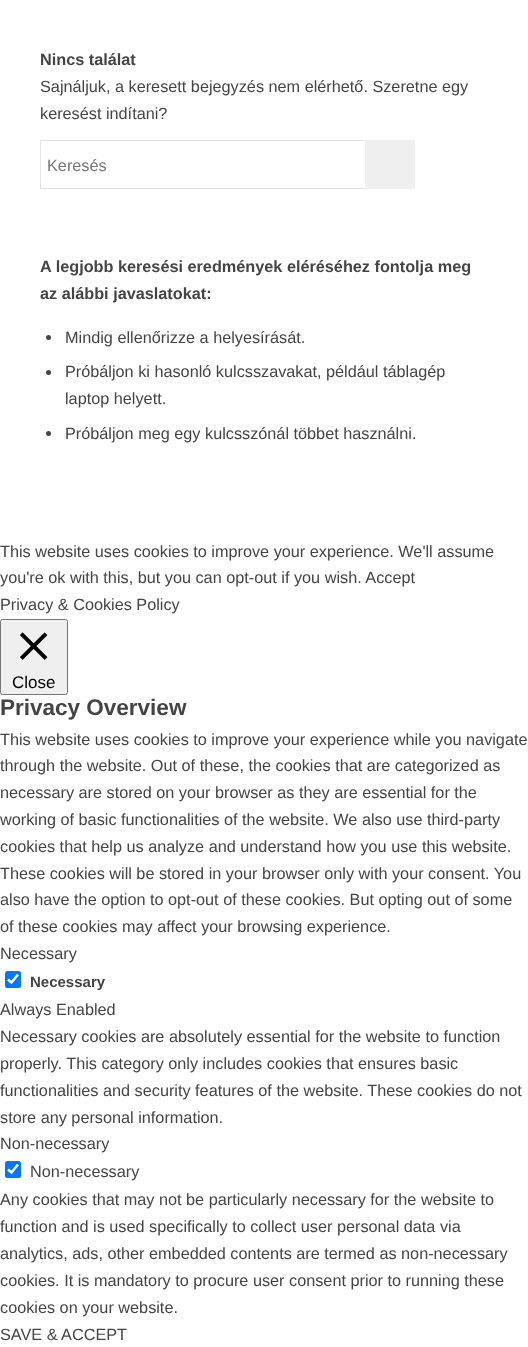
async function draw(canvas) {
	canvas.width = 528;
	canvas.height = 1347;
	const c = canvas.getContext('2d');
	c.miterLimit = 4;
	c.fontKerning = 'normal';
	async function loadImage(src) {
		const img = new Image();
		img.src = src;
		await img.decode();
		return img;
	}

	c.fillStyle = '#fff';
	c.fillRect(0, 0, 528, 1347);
	c.font = 'bold 16.25px Liberation Sans';
	c.fillStyle = '#444';
	c.fillText('Nincs találat', 40, 65);
	c.font = '16.25px Liberation Sans';
	c.fillText('Sajnáljuk, a keresett bejegyzés nem elérhető. Szeretne egy', 40, 92);
	c.fillText('keresést indítani?', 40, 119);
	c.strokeStyle = '#e1e1e1';
	c.strokeRect(40.5, 140.5, 374, 48);
	c.fillStyle = '#757575';
	c.fillText('Keresés', 47, 171);
	c.fillStyle = '#efefef';
	c.fillRect(365, 140, 50, 49);
	c.font = 'bold 16.25px Liberation Sans';
	c.fillStyle = '#444';
	c.fillText('A legjobb keresési eredmények eléréséhez fontolja meg', 40, 272);
	c.fillText('az alábbi javaslatokat:', 40, 299);
	c.beginPath();
	c.arc(48.5, 337.5, 2.5, 0, 2 * Math.PI);
	c.fill();
	c.font = '16.25px Liberation Sans';
	c.fillText('Mindig ellenőrizze a helyesírását.', 65, 343);
	c.beginPath();
	c.arc(48.5, 372.5, 2.5, 0, 2 * Math.PI);
	c.fill();
	c.fillText('Próbáljon ki hasonló kulcsszavakat, például táblagép', 65, 377);
	c.fillText('laptop helyett.', 65, 404);
	c.beginPath();
	c.arc(48.5, 433.5, 2.5, 0, 2 * Math.PI);
	c.fill();
	for (const [text, x, y] of [
		['Próbáljon meg egy kulcsszónál többet használni.', 65, 439],
		['This website uses cookies to improve your experience. We\'ll assume', 0, 557],
		['you\'re ok with this, but you can opt-out if you wish. Accept', 0, 583],
		['Privacy & Cookies Policy', 0, 610],
	]) {
		c.fillText(text, x, y);
	}
	c.fillStyle = '#efefef';
	c.beginPath();
	c.roundRect(0.5, 619.5, 67, 75, 2);
	c.fill();
	c.strokeStyle = '#767676';
	c.stroke();
	c.drawImage(await loadImage('img1.png'), 19, 632, 29, 28);
	c.font = '17px Liberation Sans';
	c.fillStyle = '#000';
	c.fillText('Close', 12, 688);
	c.font = 'bold 22.5px Liberation Sans';
	c.fillStyle = '#444';
	c.fillText('Privacy Overview', 0, 715);
	c.font = '16.25px Liberation Sans';
	for (const [text, x, y] of [
		['This website uses cookies to improve your experience while you navigate', 0, 745],
		['through the website. Out of these, the cookies that are categorized as', 0, 771],
		['necessary are stored on your browser as they are essential for the', 0, 798],
		['working of basic functionalities of the website. We also use third-party', 0, 825],
		['cookies that help us analyze and understand how you use this website.', 0, 852],
		['These cookies will be stored in your browser only with your consent. You', 0, 879],
		['also have the option to opt-out of these cookies. But opting out of some', 0, 905],
		['of these cookies may affect your browsing experience.', 0, 932],
		['Necessary', 0, 959],
	]) {
		c.fillText(text, x, y);
	}
	c.fillStyle = '#0075ff';
	c.beginPath();
	c.roundRect(5, 971, 16, 17, 2.5);
	c.fill();
	c.beginPath();
	c.moveTo(8, 979.5);
	c.lineTo(11.5, 982.5);
	c.lineTo(18, 974.5);
	c.strokeStyle = '#fff';
	c.lineWidth = 2.6;
	c.stroke();
	c.font = 'bold 15px Liberation Sans';
	c.fillStyle = '#444';
	c.fillText('Necessary', 30, 987);
	c.font = '16.25px Liberation Sans';
	for (const [text, x, y] of [
		['Always Enabled', 0, 1015],
		['Necessary cookies are absolutely essential for the website to function', 0, 1042],
		['properly. This category only includes cookies that ensures basic', 0, 1069],
		['functionalities and security features of the website. These cookies do not', 0, 1096],
		['store any personal information.', 0, 1123],
		['Non-necessary', 0, 1149],
	]) {
		c.fillText(text, x, y);
	}
	c.fillStyle = '#0075ff';
	c.beginPath();
	c.roundRect(5, 1161, 16, 17, 2.5);
	c.fill();
	c.beginPath();
	c.moveTo(8, 1169.5);
	c.lineTo(11.5, 1172.5);
	c.lineTo(18, 1164.5);
	c.stroke();
	c.fillStyle = '#444';
	for (const [text, x, y] of [
		['Non-necessary', 30, 1177],
		['Any cookies that may not be particularly necessary for the website to', 0, 1205],
		['function and is used specifically to collect user personal data via', 0, 1232],
		['analytics, ads, other embedded contents are termed as non-necessary', 0, 1259],
		['cookies. It is mandatory to procure user consent prior to running these', 0, 1286],
		['cookies on your website.', 0, 1313],
		['SAVE & ACCEPT', 0, 1340],
	]) {
		c.fillText(text, x, y);
	}
}

draw(document.querySelector('canvas'));
